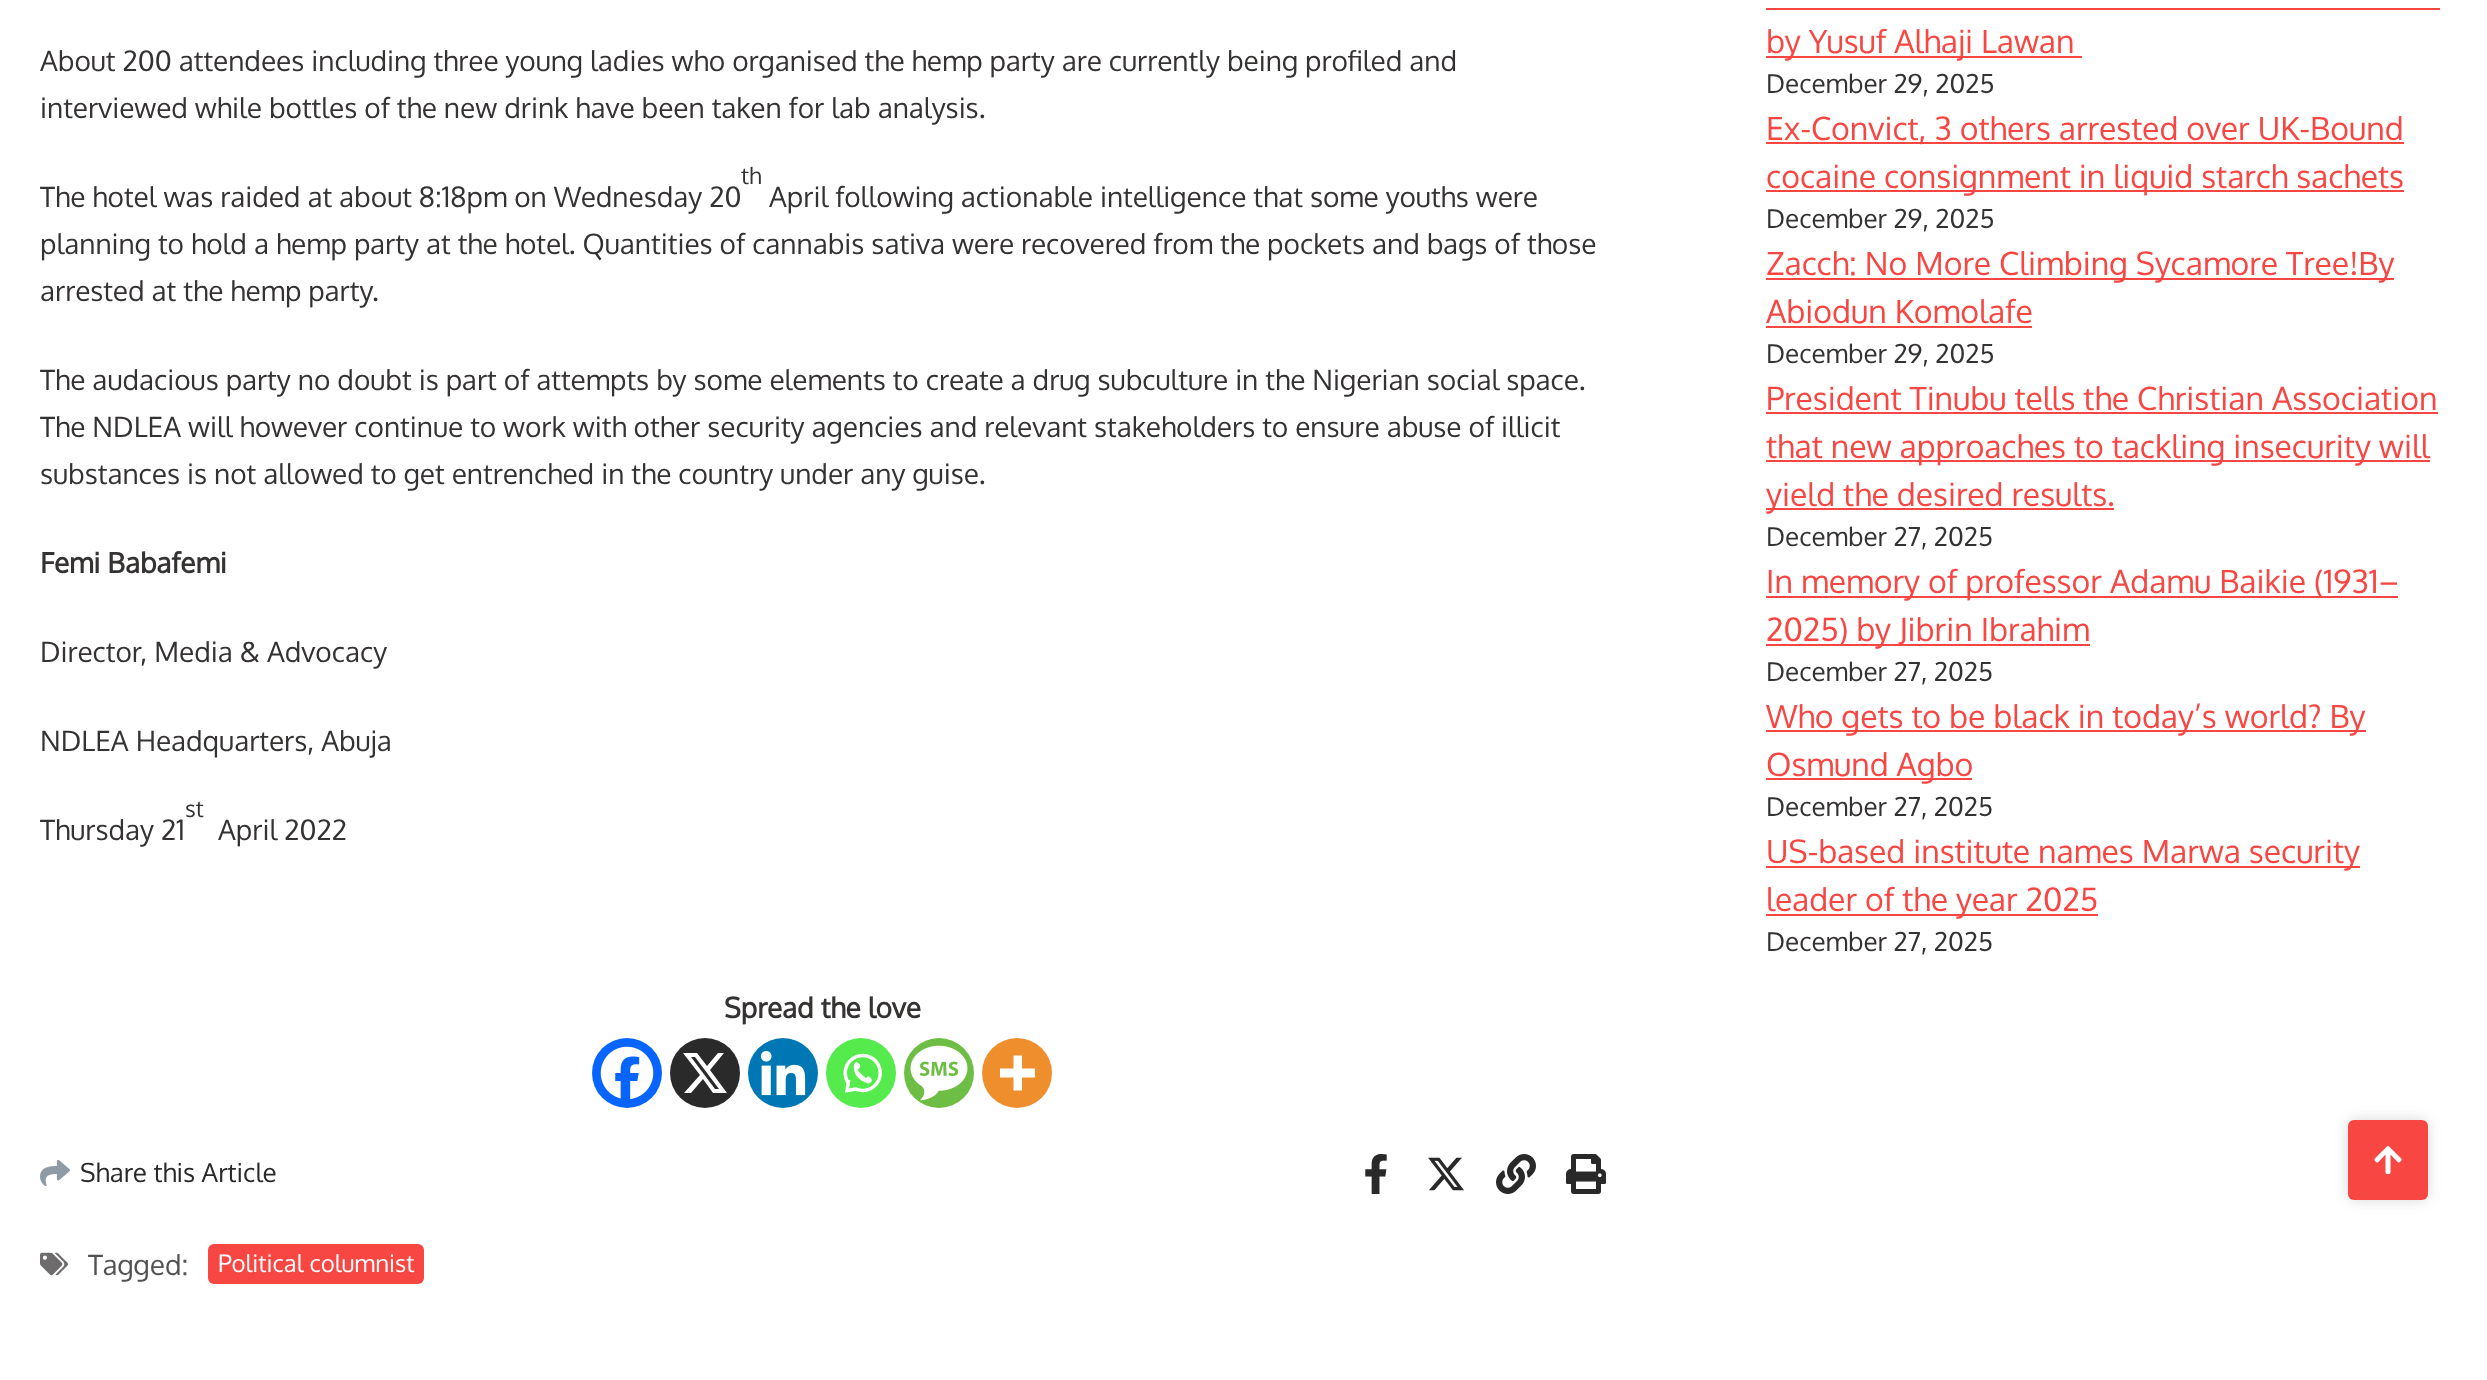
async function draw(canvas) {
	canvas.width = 2487;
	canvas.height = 1380;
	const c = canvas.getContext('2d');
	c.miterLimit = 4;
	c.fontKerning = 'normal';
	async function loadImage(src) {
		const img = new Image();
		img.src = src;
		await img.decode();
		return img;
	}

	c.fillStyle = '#fff';
	c.fillRect(0, 0, 2487, 1380);
	c.font = '28px Oxygen';
	c.fillStyle = '#353232';
	c.fillText('About 200 attendees including three young ladies who organised the hemp party are currently being profiled and', 40, 71);
	c.fillText('interviewed while bottles of the new drink have been taken for lab analysis.', 40, 118);
	c.font = '23px Oxygen';
	c.fillText('th', 741, 184);
	c.font = '28px Oxygen';
	for (const [text, x, y] of [
		['The hotel was raided at about 8:18pm on Wednesday 20', 40, 207],
		['April following actionable intelligence that some youths were', 769, 207],
		['planning to hold a hemp party at the hotel. Quantities of cannabis sativa were recovered from the pockets and bags of those', 40, 254],
		['arrested at the hemp party.', 40, 301],
		['The audacious party no doubt is part of attempts by some elements to create a drug subculture in the Nigerian social space.', 40, 390],
		['The NDLEA will however continue to work with other security agencies and relevant stakeholders to ensure abuse of illicit', 40, 437],
		['substances is not allowed to get entrenched in the country under any guise.', 40, 484],
	]) {
		c.fillText(text, x, y);
	}
	c.font = 'bold 28px Oxygen';
	c.fillText('Femi Babafemi', 40, 573);
	c.font = '28px Oxygen';
	c.fillText('Director, Media & Advocacy', 40, 662);
	c.fillText('NDLEA Headquarters, Abuja', 40, 751);
	c.font = '23px Oxygen';
	c.fillText('st', 185, 817);
	c.font = '28px Oxygen';
	c.fillText('Thursday 21', 40, 840);
	c.fillText('April 2022', 218, 840);
	c.font = 'bold 28px Oxygen';
	c.fillText('Spread the love', 724, 1018);
	c.fillStyle = '#0765fe';
	c.beginPath();
	c.arc(627, 1073, 35, 0, 2 * Math.PI);
	c.fill();
	c.drawImage(await loadImage('img1.png'), 600, 1046, 54, 53);
	c.fillStyle = '#2a2a2a';
	c.beginPath();
	c.arc(705, 1073, 35, 0, 2 * Math.PI);
	c.fill();
	c.fillStyle = '#fff';
	c.beginPath();
	c.moveTo(718, 1053);
	c.lineTo(724, 1053);
	c.lineTo(710, 1070);
	c.lineTo(727, 1093);
	c.lineTo(713, 1093);
	c.lineTo(703, 1079);
	c.lineTo(691, 1093);
	c.lineTo(684, 1093);
	c.lineTo(700, 1075);
	c.lineTo(683, 1053);
	c.lineTo(697, 1053);
	c.lineTo(707, 1066);
	c.closePath();
	c.moveTo(715, 1089);
	c.lineTo(719, 1089);
	c.lineTo(695, 1057);
	c.lineTo(691, 1057);
	c.closePath();
	c.fill();
	c.fillStyle = '#0077b5';
	c.beginPath();
	c.arc(783, 1073, 35, 0, 2 * Math.PI);
	c.fill();
	c.drawImage(await loadImage('img2.png'), 760, 1050, 46, 46);
	c.fillStyle = '#55eb4c';
	c.beginPath();
	c.arc(861, 1073, 35, 0, 2 * Math.PI);
	c.fill();
	c.drawImage(await loadImage('img3.png'), 843, 1053, 39, 40);
	c.fillStyle = '#6ebe45';
	c.beginPath();
	c.arc(939, 1073, 35, 0, 2 * Math.PI);
	c.fill();
	c.drawImage(await loadImage('img4.png'), 910, 1045, 58, 56);
	c.fillStyle = '#ee8e2d';
	c.beginPath();
	c.arc(1017, 1073, 35, 0, 2 * Math.PI);
	c.fill();
	c.fillStyle = '#fff';
	c.beginPath();
	c.moveTo(1022, 1068.5);
	c.lineTo(1022, 1055.5);
	c.lineTo(1013.5, 1055.5);
	c.lineTo(1013.5, 1068.5);
	c.lineTo(1000, 1068.5);
	c.lineTo(1000, 1077.5);
	c.lineTo(1013.5, 1077.5);
	c.lineTo(1013.5, 1090.5);
	c.lineTo(1022, 1090.5);
	c.lineTo(1022, 1077.5);
	c.lineTo(1035, 1077.5);
	c.lineTo(1035, 1068.5);
	c.closePath();
	c.fill('evenodd');
	c.drawImage(await loadImage('img5.png'), 40, 1159, 30, 28);
	c.font = '26px Oxygen';
	c.fillStyle = '#292929';
	c.fillText('Share this Article', 80, 1182);
	c.drawImage(await loadImage('img6.png'), 1365, 1154, 22, 40);
	c.drawImage(await loadImage('img7.png'), 1428, 1157, 36, 34);
	c.drawImage(await loadImage('img8.png'), 1496, 1154, 40, 40);
	c.drawImage(await loadImage('img9.png'), 1566, 1154, 40, 40);
	c.drawImage(await loadImage('img10.png'), 40, 1252, 28, 24);
	c.font = '28px Oxygen';
	c.fillStyle = '#535151';
	c.fillText('Tagged:', 88, 1275);
	c.fillStyle = '#f84643';
	c.beginPath();
	c.roundRect(208, 1244, 216, 40, 6);
	c.fill();
	c.font = '24px Oxygen';
	c.fillStyle = '#fff';
	c.fillText('Political columnist', 218, 1272);
	c.fillStyle = '#f84643';
	c.fillRect(1766, 56, 316, 2);
	c.font = '32px Oxygen';
	c.fillText('by Yusuf Alhaji Lawan', 1766, 53);
	c.fillRect(1766, 8, 674, 2);
	c.font = '26px Oxygen';
	c.fillStyle = '#353232';
	c.fillText('December 29, 2025', 1766, 93);
	c.fillStyle = '#f84643';
	c.fillRect(1766, 142, 638, 2);
	c.font = '32px Oxygen';
	c.fillText('Ex-Convict, 3 others arrested over UK-Bound', 1766, 140);
	c.fillRect(1766, 190, 638, 2);
	c.fillText('cocaine consignment in liquid starch sachets', 1766, 188);
	c.font = '26px Oxygen';
	c.fillStyle = '#353232';
	c.fillText('December 29, 2025', 1766, 228);
	c.fillStyle = '#f84643';
	c.fillRect(1766, 278, 628, 2);
	c.font = '32px Oxygen';
	c.fillText('Zacch: No More Climbing Sycamore Tree!By', 1766, 275);
	c.fillText('Abiodun Komolafe', 1766, 323);
	c.fillRect(1766, 326, 266, 2);
	c.font = '26px Oxygen';
	c.fillStyle = '#353232';
	c.fillText('December 29, 2025', 1766, 363);
	c.font = '32px Oxygen';
	c.fillStyle = '#f84643';
	c.fillText('President Tinubu tells the Christian Association', 1766, 410);
	c.fillRect(1766, 412, 672, 2);
	c.fillRect(1766, 460, 664, 2);
	c.fillText('that new approaches to tackling insecurity will', 1766, 458);
	c.fillRect(1766, 508, 348, 2);
	c.fillText('yield the desired results.', 1766, 506);
	c.font = '26px Oxygen';
	c.fillStyle = '#353232';
	c.fillText('December 27, 2025', 1766, 546);
	c.fillStyle = '#f84643';
	c.fillRect(1766, 596, 632, 2);
	c.font = '32px Oxygen';
	c.fillText('In memory of professor Adamu Baikie (1931–', 1766, 593);
	c.fillRect(1766, 644, 324, 2);
	c.fillText('2025) by Jibrin Ibrahim', 1766, 641);
	c.font = '26px Oxygen';
	c.fillStyle = '#353232';
	c.fillText('December 27, 2025', 1766, 681);
	c.fillStyle = '#f84643';
	c.fillRect(1766, 730, 600, 2);
	c.font = '32px Oxygen';
	c.fillText('Who gets to be black in today’s world? By', 1766, 728);
	c.fillRect(1766, 778, 206, 2);
	c.fillText('Osmund Agbo', 1766, 776);
	c.font = '26px Oxygen';
	c.fillStyle = '#353232';
	c.fillText('December 27, 2025', 1766, 816);
	c.fillStyle = '#f84643';
	c.fillRect(1766, 866, 594, 2);
	c.font = '32px Oxygen';
	c.fillText('US-based institute names Marwa security', 1766, 863);
	c.fillRect(1766, 914, 332, 2);
	c.fillText('leader of the year 2025', 1766, 911);
	c.font = '26px Oxygen';
	c.fillStyle = '#353232';
	c.fillText('December 27, 2025', 1766, 951);
	c.fillStyle = '#00000026';
	c.filter = 'blur(7px)';
	c.beginPath();
	c.roundRect(2348, 1120, 80, 80, 6);
	c.fill();
	c.filter = 'none';
	c.fillStyle = '#f84643';
	c.beginPath();
	c.roundRect(2348, 1120, 80, 80, 6);
	c.fill();
	c.drawImage(await loadImage('img11.png'), 2374, 1146, 28, 28);
}

draw(document.querySelector('canvas'));
